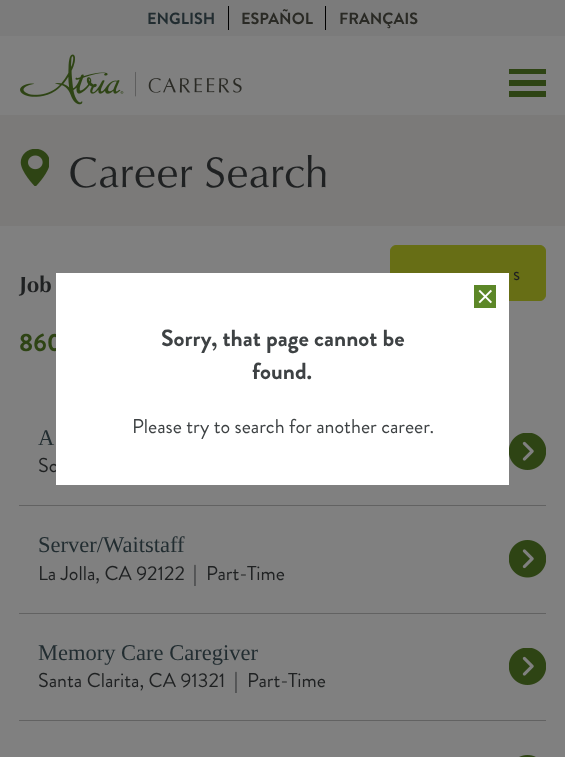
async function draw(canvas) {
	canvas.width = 565;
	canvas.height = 757;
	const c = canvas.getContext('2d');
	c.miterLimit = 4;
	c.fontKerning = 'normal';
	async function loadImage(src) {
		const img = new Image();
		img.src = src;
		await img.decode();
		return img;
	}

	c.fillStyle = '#808080';
	c.fillRect(0, 0, 565, 757);
	c.fillStyle = '#7b7b7b';
	c.fillRect(0, 0, 565, 36);
	c.font = 'bold 16.25px Brandon Grotesque';
	c.fillStyle = '#222d31';
	c.fillText('ENGLISH', 147, 24);
	c.fillStyle = '#2a2a25';
	c.fillText('ESPAÑOL', 241, 24);
	c.fillStyle = '#000';
	c.fillRect(228, 6, 1, 24);
	c.fillStyle = '#2a2a25';
	c.fillText('FRANÇAIS', 339, 24);
	c.fillStyle = '#000';
	c.fillRect(325, 6, 1, 24);
	c.drawImage(await loadImage('img1.png'), 20, 54, 222, 51);
	for (const [x, y, w, h, color] of [
		[509, 69, 37, 5, '#2e4414'],
		[509, 80, 37, 6, '#2e4414'],
		[509, 91, 37, 6, '#2e4414'],
		[0, 115, 565, 111, '#7b7a79'],
	]) {
		c.fillStyle = color;
		c.fillRect(x, y, w, h);
	}
	c.drawImage(await loadImage('img2.png'), 20, 149, 29, 37);
	c.font = '43.75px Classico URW';
	c.fillStyle = '#1f2122';
	c.fillText('Career Search', 68, 187);
	c.font = 'bold 22.5px Classico URW';
	c.fillText('Job', 19, 292);
	c.fillStyle = '#676e15';
	c.beginPath();
	c.roundRect(390.5, 245.5, 155, 55, 5.5);
	c.fill();
	c.strokeStyle = '#676e15';
	c.stroke();
	c.font = '20px Brandon Grotesque';
	c.fillStyle = '#1f2122';
	c.fillText('s', 513, 280);
	c.font = 'bold 25px Brandon Grotesque';
	c.fillStyle = '#2e4414';
	c.fillText('860', 19, 351);
	c.font = '22.5px Liberation Serif';
	c.fillStyle = '#222d31';
	c.fillText('A', 38, 445);
	c.drawImage(await loadImage('img3.png'), 509, 433, 37, 37);
	c.font = '20px Brandon Grotesque';
	c.fillStyle = '#1f2122';
	c.fillText('Sc', 38, 472);
	c.fillStyle = '#626262';
	c.fillRect(19, 505, 527, 1);
	c.font = '22.5px Liberation Serif';
	c.fillStyle = '#222d31';
	c.fillText('Server/Waitstaff', 38, 552);
	c.drawImage(await loadImage('img4.png'), 509, 540, 37, 38);
	c.font = '20px Brandon Grotesque';
	c.fillStyle = '#1f2122';
	for (const [text, x, y] of [
		['La Jolla, CA 92122', 38, 580],
		['|', 193, 580],
		['Part-Time', 206, 580],
	]) {
		c.fillText(text, x, y);
	}
	c.fillStyle = '#626262';
	c.fillRect(19, 613, 527, 1);
	c.font = '22.5px Liberation Serif';
	c.fillStyle = '#222d31';
	c.fillText('Memory Care Caregiver', 38, 660);
	c.drawImage(await loadImage('img3.png'), 509, 648, 37, 37);
	c.font = '20px Brandon Grotesque';
	c.fillStyle = '#1f2122';
	for (const [text, x, y] of [
		['Santa Clarita, CA 91321', 38, 687],
		['|', 234, 687],
		['Part-Time', 247, 687],
	]) {
		c.fillText(text, x, y);
	}
	c.fillStyle = '#626262';
	c.fillRect(19, 720, 527, 1);
	c.drawImage(await loadImage('img5.png'), 519, 755, 17, 2);
	c.fillStyle = '#fff';
	c.fillRect(56, 273, 453, 212);
	c.drawImage(await loadImage('img6.png'), 474, 285, 22, 23);
	c.font = 'bold 23.4px Brandon Grotesque';
	c.fillStyle = '#3e4244';
	c.fillText('Sorry, that page cannot be', 161, 346);
	c.fillText('found.', 252, 379);
	c.font = '20px Brandon Grotesque';
	c.fillText('Please try to search for another career.', 132, 433);
}

draw(document.querySelector('canvas'));
